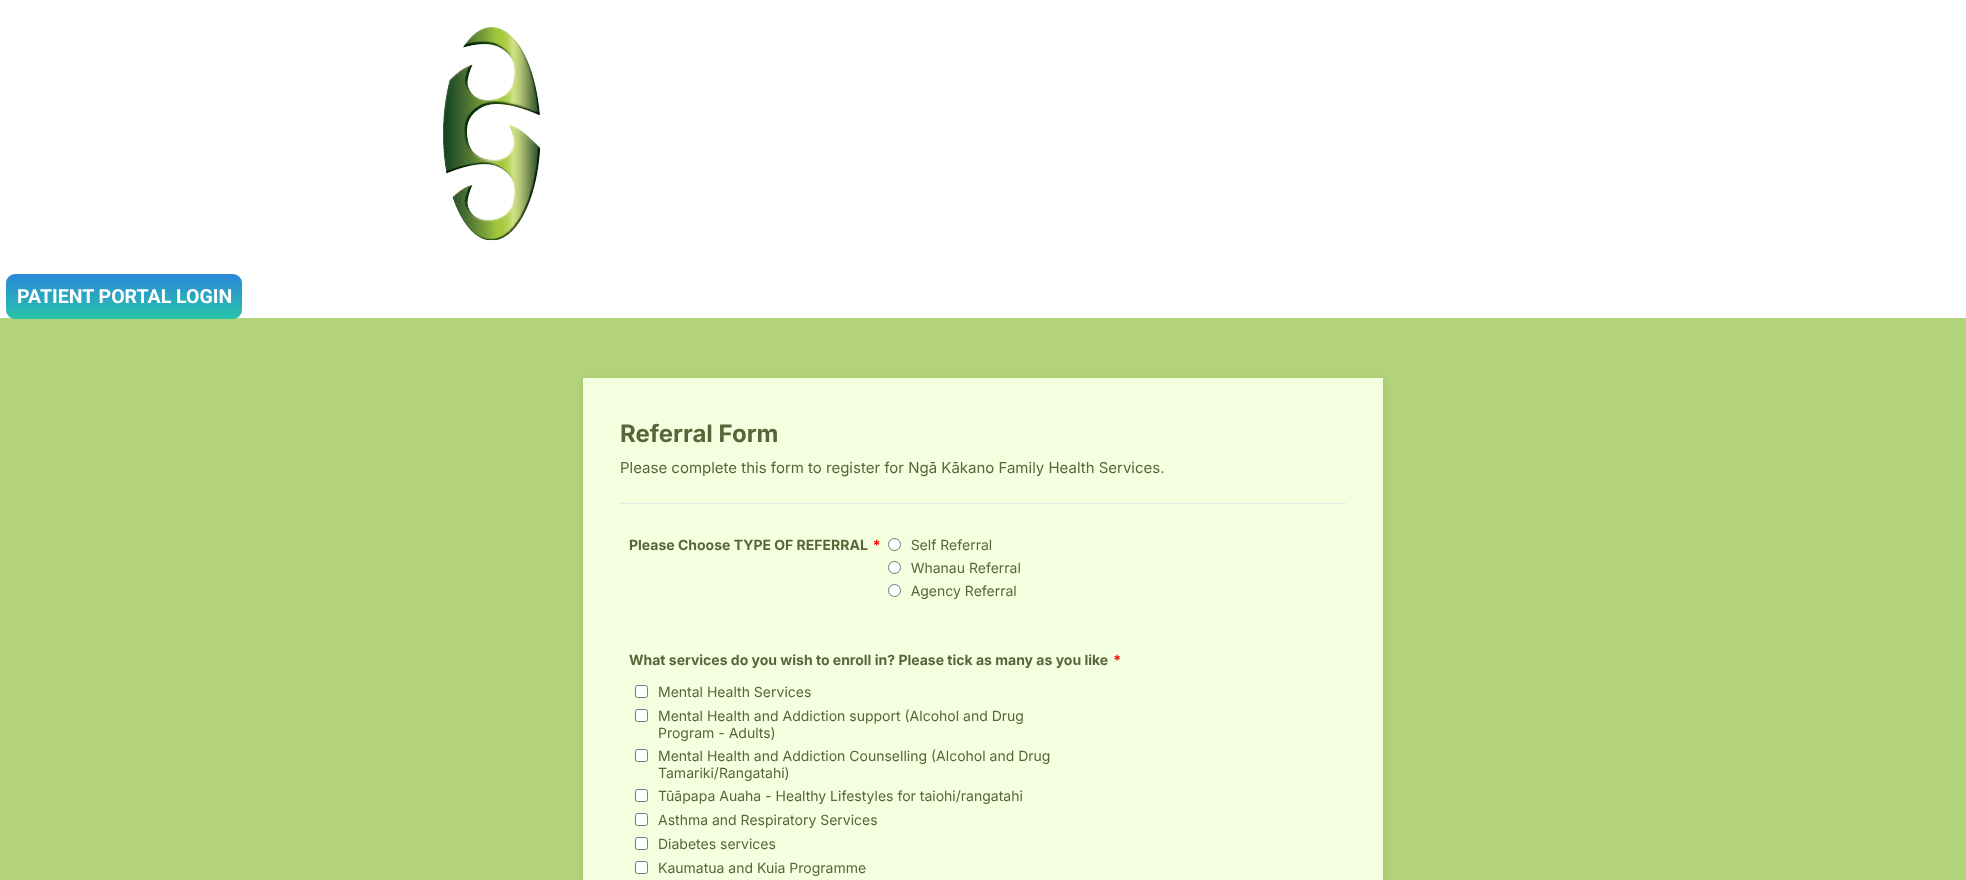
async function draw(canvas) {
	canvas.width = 1966;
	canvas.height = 880;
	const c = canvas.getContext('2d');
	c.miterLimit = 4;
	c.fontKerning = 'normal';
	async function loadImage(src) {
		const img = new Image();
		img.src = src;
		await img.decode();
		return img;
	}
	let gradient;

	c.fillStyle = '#fff';
	c.fillRect(0, 0, 1966, 880);
	c.drawImage(await loadImage('img1.png'), 443, 27, 97, 214);
	c.drawImage(await loadImage('img2.png'), 0, 318, 1966, 562);
	gradient = c.createLinearGradient(124, 274, 124, 319);
	gradient.addColorStop(0, '#2b87da');
	gradient.addColorStop(1, '#29c4a9');
	c.fillStyle = gradient;
	c.beginPath();
	c.roundRect(6, 274, 236, 45, 9);
	c.fill();
	c.font = 'bold 19.5px Roboto';
	c.fillStyle = '#fff';
	c.fillText('PATIENT PORTAL LOGIN', 17, 303);
}

draw(document.querySelector('canvas'));
